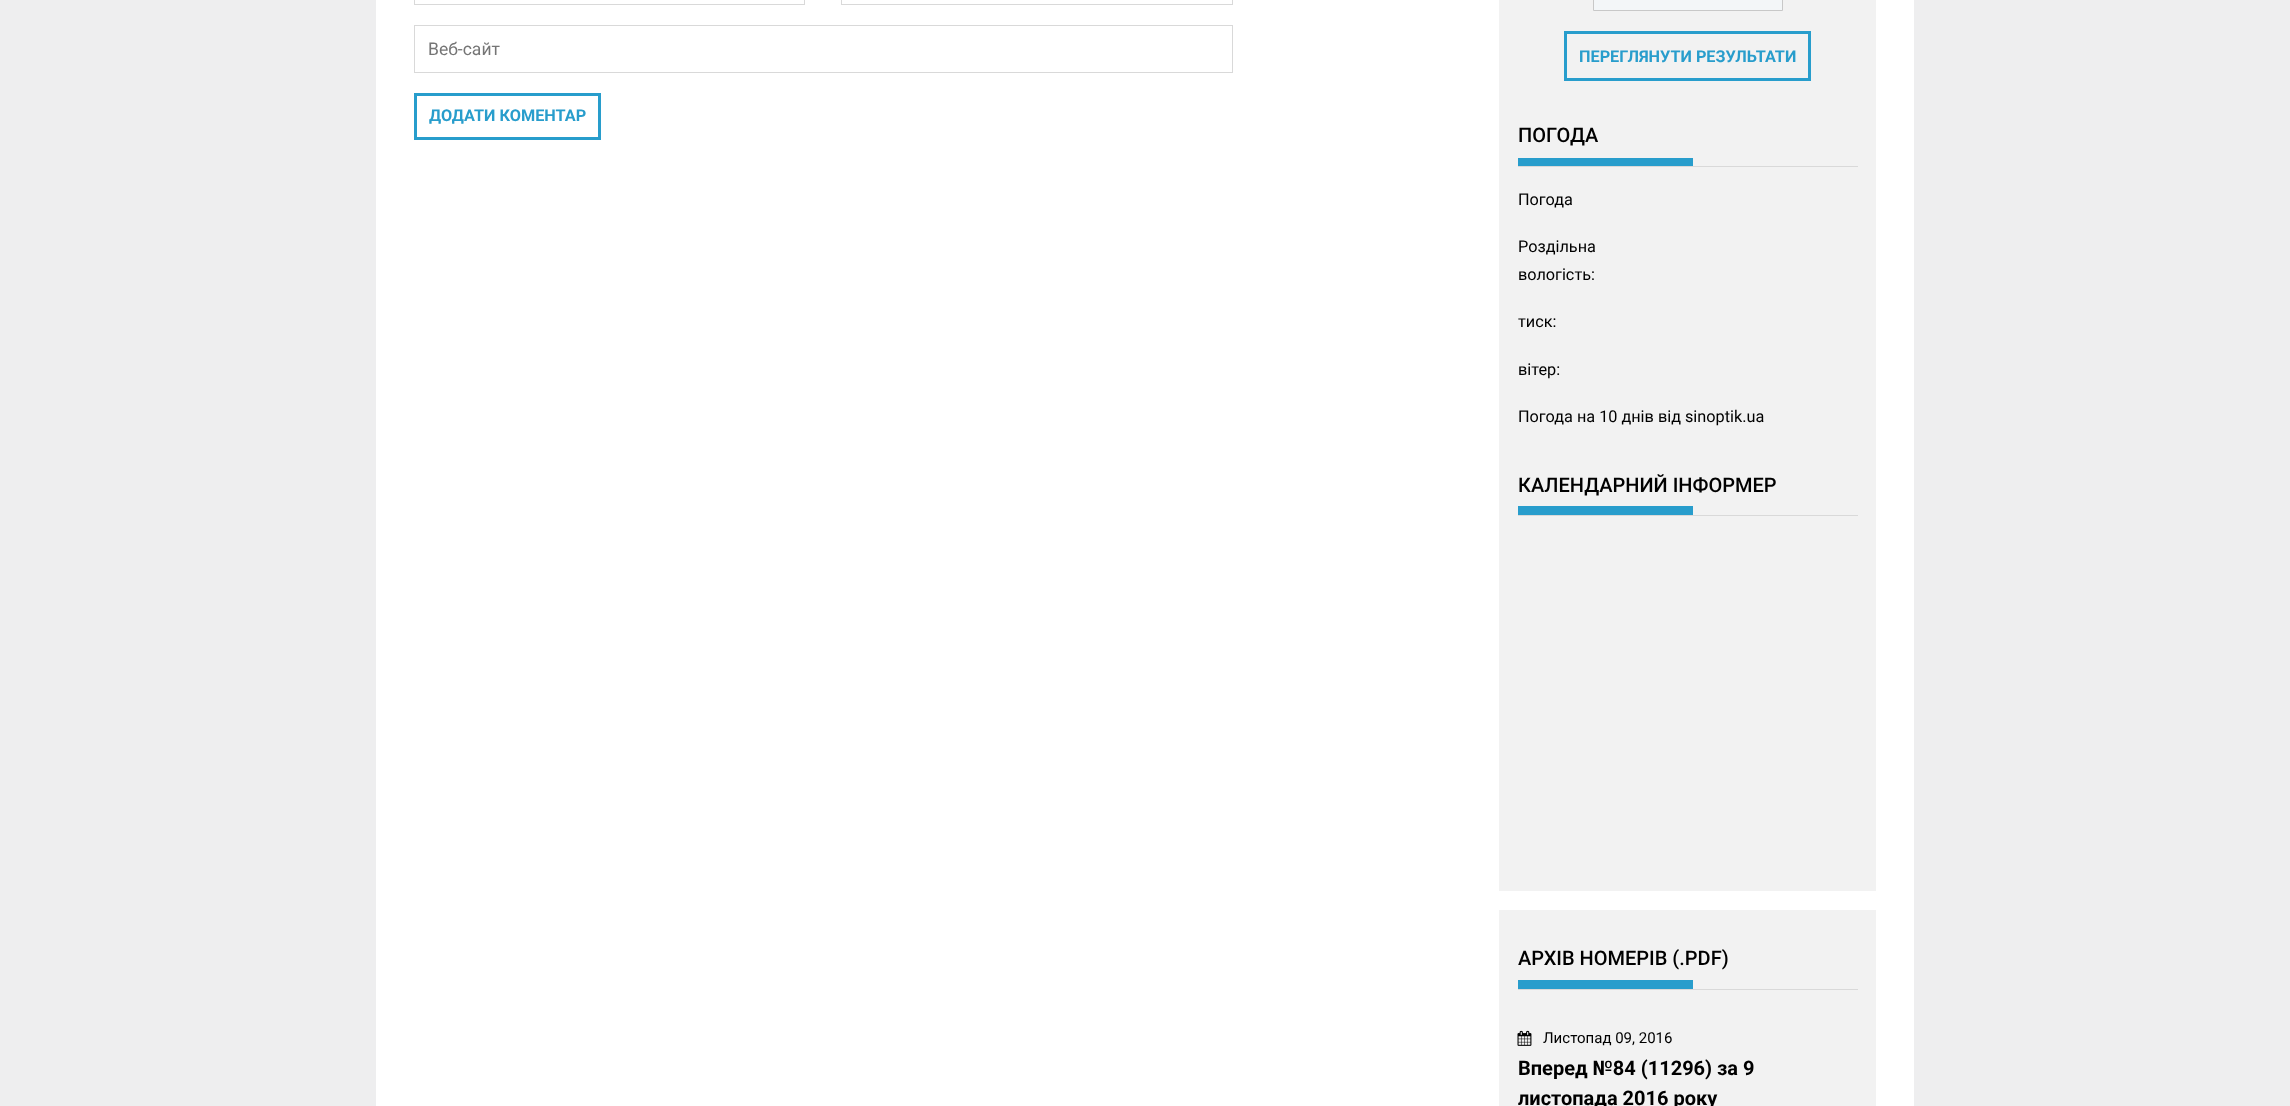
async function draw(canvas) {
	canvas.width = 2290;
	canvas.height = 1106;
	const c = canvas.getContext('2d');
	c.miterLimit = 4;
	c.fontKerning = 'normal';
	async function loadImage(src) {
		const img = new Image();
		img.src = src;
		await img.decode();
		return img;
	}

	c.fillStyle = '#eeeeef';
	c.fillRect(0, 0, 2290, 1106);
	c.fillStyle = '#fff';
	c.fillRect(376, 0, 1538, 1106);
	c.strokeStyle = '#d9d9d9';
	c.strokeRect(414.5, -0.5, 390, 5);
	c.strokeRect(841.5, -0.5, 391, 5);
	c.strokeRect(414.5, 25.5, 818, 47);
	c.font = '17.5px Roboto';
	c.fillStyle = '#757575';
	c.fillText('Веб-сайт', 428, 55);
	c.strokeStyle = '#289dcc';
	c.lineWidth = 3;
	c.strokeRect(415.5, 94.5, 184, 44);
	c.font = 'bold 16.25px Roboto';
	c.fillStyle = '#289dcc';
	c.fillText('ДОДАТИ КОМЕНТАР', 429, 121);
	c.fillStyle = '#f2f2f2';
	c.fillRect(1499, 0, 377, 891);
	c.fillStyle = '#f3f6f8';
	c.beginPath();
	c.rect(1593.5, -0.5, 189, 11);
	c.fill();
	c.strokeStyle = '#c8c8c8';
	c.lineWidth = 1;
	c.stroke();
	c.strokeStyle = '#289dcc';
	c.lineWidth = 3;
	c.strokeRect(1565.5, 32.5, 244, 47);
	c.fillStyle = '#289dcc';
	c.fillText('ПЕРЕГЛЯНУТИ РЕЗУЛЬТАТИ', 1579, 62);
	c.fillStyle = '#d9d9d9';
	c.fillRect(1518, 166, 340, 1);
	c.font = '500 20px Roboto';
	c.fillStyle = '#000';
	c.fillText('ПОГОДА', 1518, 142);
	c.fillStyle = '#289dcc';
	c.fillRect(1518, 158, 175, 8);
	c.font = '16.25px Roboto';
	c.fillStyle = '#000';
	for (const [text, x, y] of [
		['Погода', 1518, 205],
		['Роздільна', 1518, 252],
		['вологість:', 1518, 280],
		['тиск:', 1518, 327],
		['вітер:', 1518, 375],
		['Погода на 10 днів від sinoptik.ua', 1518, 422],
	]) {
		c.fillText(text, x, y);
	}
	c.fillStyle = '#d9d9d9';
	c.fillRect(1518, 515, 340, 1);
	c.font = '500 20px Roboto';
	c.fillStyle = '#000';
	c.fillText('КАЛЕНДАРНИЙ ІНФОРМЕР', 1518, 492);
	for (const [x, y, w, h, color] of [
		[1518, 506, 175, 9, '#289dcc'],
		[1499, 910, 377, 196, '#f2f2f2'],
		[1518, 989, 340, 1, '#d9d9d9'],
	]) {
		c.fillStyle = color;
		c.fillRect(x, y, w, h);
	}
	c.fillStyle = '#000';
	c.fillText('АРХІВ НОМЕРІВ (.PDF)', 1518, 965);
	c.fillStyle = '#289dcc';
	c.fillRect(1518, 980, 175, 9);
	c.drawImage(await loadImage('img1.png'), 1517, 1030, 15, 16);
	c.font = '15px Roboto';
	c.fillStyle = '#000';
	c.fillText('Листопад 09, 2016', 1543, 1043);
	c.font = 'bold 20px Roboto';
	c.fillText('Вперед №84 (11296) за 9', 1518, 1075);
	c.fillText('листопада 2016 року', 1518, 1105);
}

draw(document.querySelector('canvas'));
